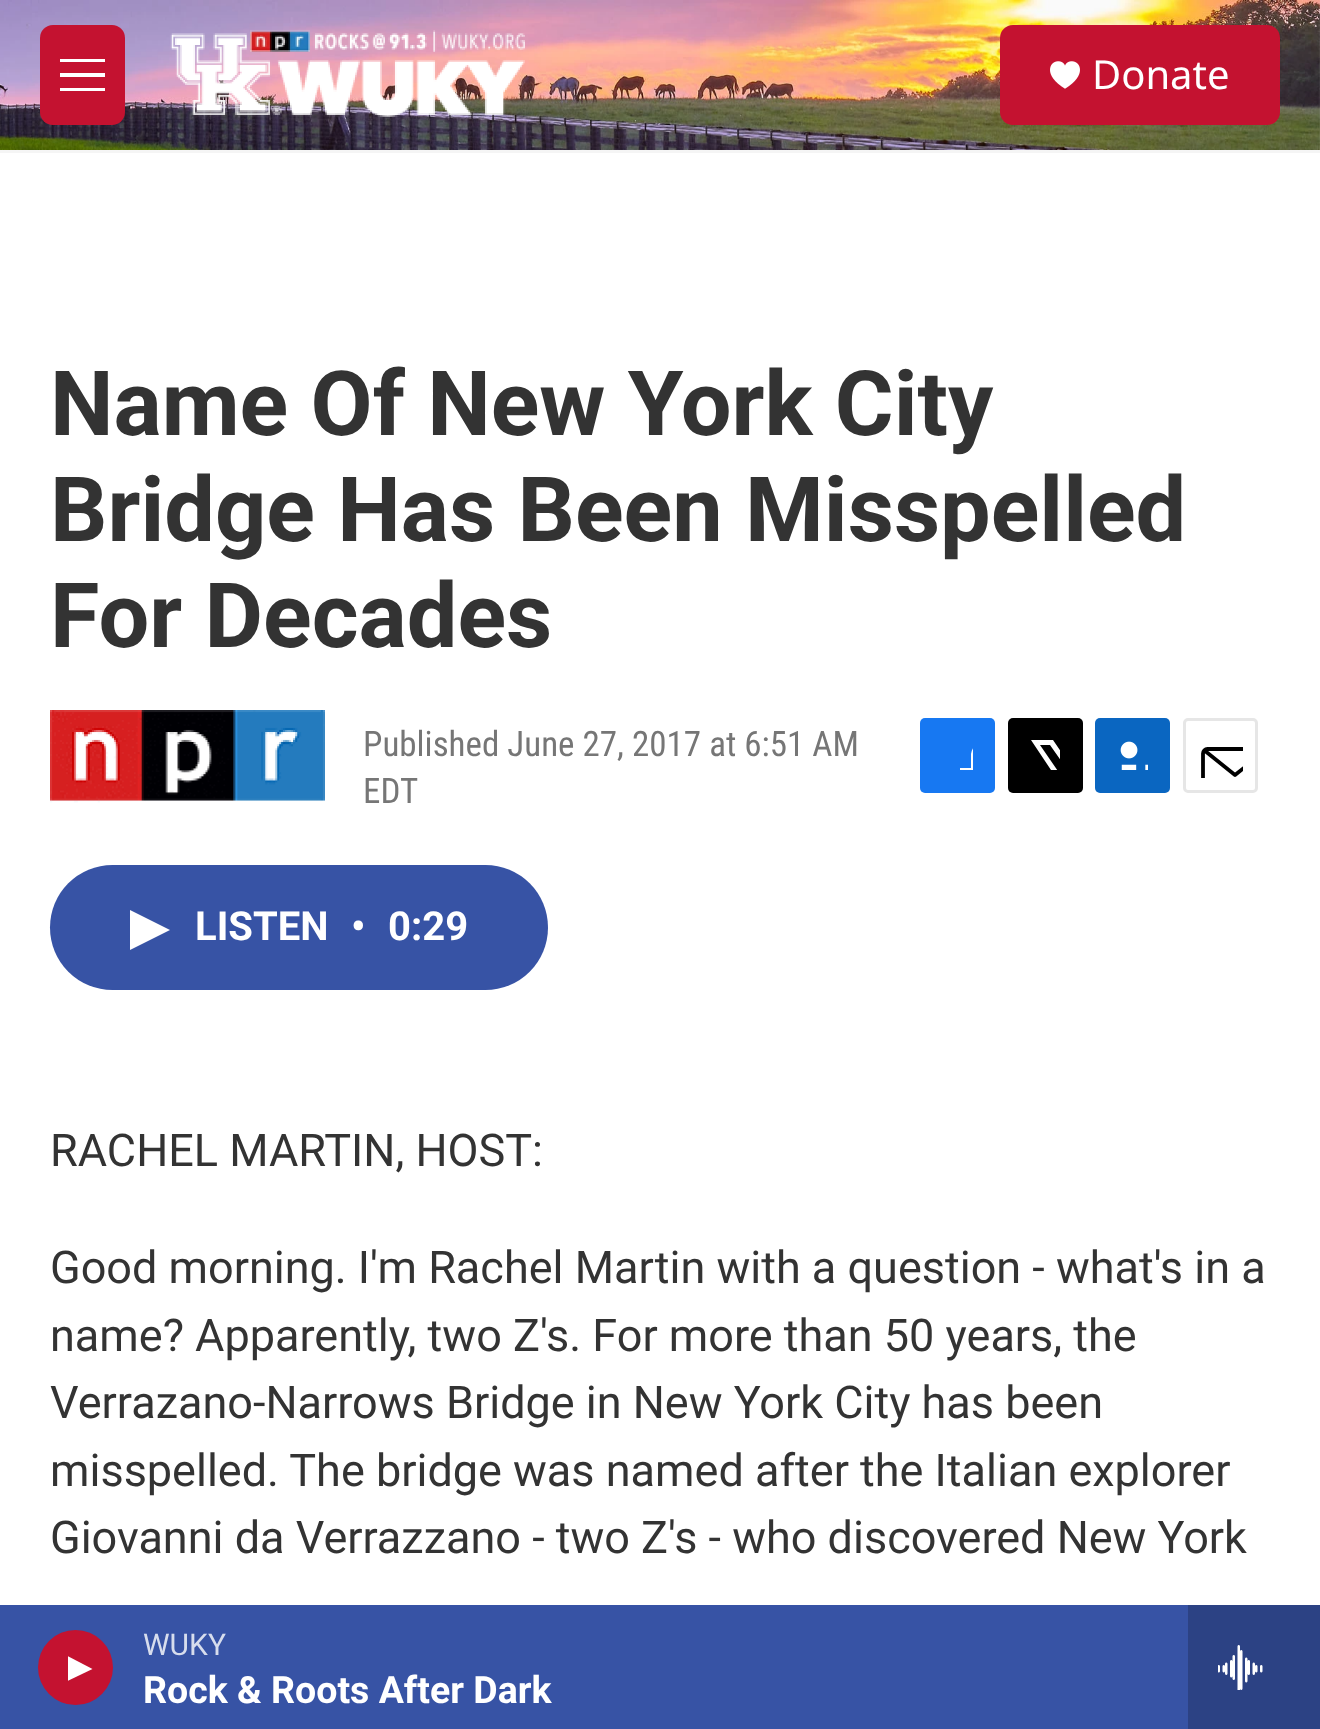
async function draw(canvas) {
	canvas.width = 1320;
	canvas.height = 1729;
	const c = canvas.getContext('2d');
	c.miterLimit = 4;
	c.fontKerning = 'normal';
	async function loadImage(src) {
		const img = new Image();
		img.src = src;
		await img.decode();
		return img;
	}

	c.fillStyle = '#fff';
	c.fillRect(0, 0, 1320, 1729);
	c.fillStyle = '#f5f5f5';
	c.fillRect(0, 150, 1320, 3);
	c.drawImage(await loadImage('img1.png'), 0, 0, 1320, 150);
	c.fillStyle = '#c41230';
	c.beginPath();
	c.roundRect(40, 25, 85, 100, 13);
	c.fill();
	c.fillStyle = '#fff';
	c.beginPath();
	c.moveTo(60, 77);
	c.lineTo(60, 73);
	c.lineTo(105, 73);
	c.lineTo(105, 77);
	c.closePath();
	c.moveTo(60, 62);
	c.lineTo(60, 59);
	c.lineTo(105, 59);
	c.lineTo(105, 62);
	c.closePath();
	c.moveTo(60, 91);
	c.lineTo(60, 88);
	c.lineTo(105, 88);
	c.lineTo(105, 91);
	c.closePath();
	c.fill('evenodd');
	c.drawImage(await loadImage('img2.png'), 170, 30, 355, 87);
	c.fillStyle = '#c41230';
	c.beginPath();
	c.roundRect(1000, 25, 280, 100, 13);
	c.fill();
	c.drawImage(await loadImage('img3.png'), 1050, 61, 30, 28);
	c.font = '40px Noto Sans';
	c.fillStyle = '#fff';
	c.fillText('Donate', 1092, 89);
	c.fillStyle = '#3753a5';
	c.fillRect(0, 1605, 1188, 124);
	c.fillStyle = '#c41230';
	c.beginPath();
	c.arc(75.5, 1667.5, 37.5, 0, 2 * Math.PI);
	c.fill();
	c.save();
	c.beginPath();
	c.rect(68, 1655, 25, 28);
	c.clip();
	c.fillStyle = '#fff';
	c.beginPath();
	c.moveTo(67.5, 1656);
	c.lineTo(92.5, 1669);
	c.lineTo(67.5, 1681);
	c.closePath();
	c.fill();
	c.restore();
	c.font = '30px Roboto';
	c.fillStyle = '#d7dded';
	c.fillText('WUKY', 143, 1655);
	c.font = 'bold 37.5px "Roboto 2"';
	c.fillStyle = '#fff';
	c.fillText('Rock & Roots After Dark', 143, 1703);
	c.fillStyle = '#2c4284';
	c.fillRect(1188, 1605, 132, 124);
	c.drawImage(await loadImage('img4.png'), 1218, 1645, 45, 45);
	c.font = 'bold 90px Roboto';
	c.fillStyle = '#333';
	for (const [text, x, y] of [
		['Name Of New York City', 50, 435],
		['Bridge Has Been Misspelled', 50, 541],
		['For Decades', 50, 647],
	]) {
		c.fillText(text, x, y);
	}
	c.drawImage(await loadImage('img5.png'), 50, 710, 275, 93);
	c.font = '35px Roboto Condensed';
	c.fillStyle = '#767676';
	c.fillText('Published June 27, 2017 at 6:51 AM', 363, 756);
	c.fillText('EDT', 363, 803);
	c.fillStyle = '#1778f2';
	c.beginPath();
	c.roundRect(920, 718, 75, 75, 5);
	c.fill();
	c.save();
	c.beginPath();
	c.rect(943, 740, 30, 30);
	c.clip();
	c.fillStyle = '#fff';
	c.beginPath();
	c.moveTo(984, 793);
	c.lineTo(971, 793);
	c.lineTo(971, 780);
	c.lineTo(960, 780);
	c.lineTo(960, 768);
	c.lineTo(971, 768);
	c.lineTo(971, 754);
	c.bezierCurveTo(973, 742, 984, 740, 995, 742);
	c.lineTo(995, 753);
	c.bezierCurveTo(981, 753, 984, 757, 984, 768);
	c.lineTo(995, 768);
	c.lineTo(995, 774);
	c.lineTo(994, 780);
	c.lineTo(984, 780);
	c.closePath();
	c.fill();
	c.restore();
	c.fillStyle = '#000';
	c.beginPath();
	c.roundRect(1008, 718, 75, 75, 5);
	c.fill();
	c.save();
	c.beginPath();
	c.rect(1030, 740, 30, 30);
	c.clip();
	c.fillStyle = '#fff';
	c.beginPath();
	c.moveTo(1074, 772);
	c.lineTo(1083, 785);
	c.bezierCurveTo(1083, 787, 1083, 789, 1082, 791);
	c.lineTo(1050, 745);
	c.lineTo(1040, 745);
	c.lineTo(1073, 793);
	c.lineTo(1067, 793);
	c.lineTo(1062, 786);
	c.lineTo(1056, 793);
	c.lineTo(1050, 793);
	c.lineTo(1059, 782);
	c.lineTo(1031, 740);
	c.lineTo(1053, 740);
	c.lineTo(1072, 768);
	c.lineTo(1083, 755);
	c.lineTo(1083, 762);
	c.closePath();
	c.fill();
	c.restore();
	c.fillStyle = '#0a66c1';
	c.beginPath();
	c.roundRect(1095, 718, 75, 75, 5);
	c.fill();
	c.drawImage(await loadImage('img6.png'), 1120, 741, 28, 29);
	c.beginPath();
	c.roundRect(1184.5, 719.5, 72, 72, 3.5);
	c.strokeStyle = '#e6e6e6';
	c.lineWidth = 3;
	c.stroke();
	c.save();
	c.beginPath();
	c.rect(1198, 733, 45, 45);
	c.clip();
	c.beginPath();
	c.moveTo(1267, 787.5);
	c.bezierCurveTo(1267, 790, 1265, 792, 1262.5, 792);
	c.lineTo(1207.5, 792);
	c.bezierCurveTo(1205, 792, 1203, 790, 1203, 787.5);
	c.lineTo(1203, 753.5);
	c.bezierCurveTo(1203, 751, 1205, 749, 1207.5, 749);
	c.lineTo(1262.5, 749);
	c.bezierCurveTo(1265, 749, 1267, 751, 1267, 753.5);
	c.closePath();
	c.moveTo(1265.5, 750.5);
	c.lineTo(1235, 775);
	c.lineTo(1204.5, 750.5);
	c.strokeStyle = '#000';
	c.lineWidth = 3.8;
	c.lineCap = 'round';
	c.lineJoin = 'round';
	c.stroke();
	c.restore();
	c.fillStyle = '#3753a5';
	c.beginPath();
	c.roundRect(50, 865, 498, 125, 62.5);
	c.fill();
	c.fillStyle = '#fff';
	c.beginPath();
	c.moveTo(130, 910);
	c.lineTo(170, 930);
	c.lineTo(130, 950);
	c.closePath();
	c.fill();
	c.font = 'bold 40px "Roboto 2"';
	for (const [text, x, y] of [
		['LISTEN', 195, 940],
		['•', 351, 940],
		['0:29', 388, 940],
	]) {
		c.fillText(text, x, y);
	}
	c.font = '45px Roboto';
	c.fillStyle = '#333';
	for (const [text, x, y] of [
		['RACHEL MARTIN, HOST:', 50, 1166],
		['Good morning. I\'m Rachel Martin with a question - what\'s in a', 50, 1283],
		['name? Apparently, two Z\'s. For more than 50 years, the', 50, 1351],
		['Verrazano-Narrows Bridge in New York City has been', 50, 1418],
		['misspelled. The bridge was named after the Italian explorer', 50, 1486],
		['Giovanni da Verrazzano - two Z\'s - who discovered New York', 50, 1553],
	]) {
		c.fillText(text, x, y);
	}
}

draw(document.querySelector('canvas'));
